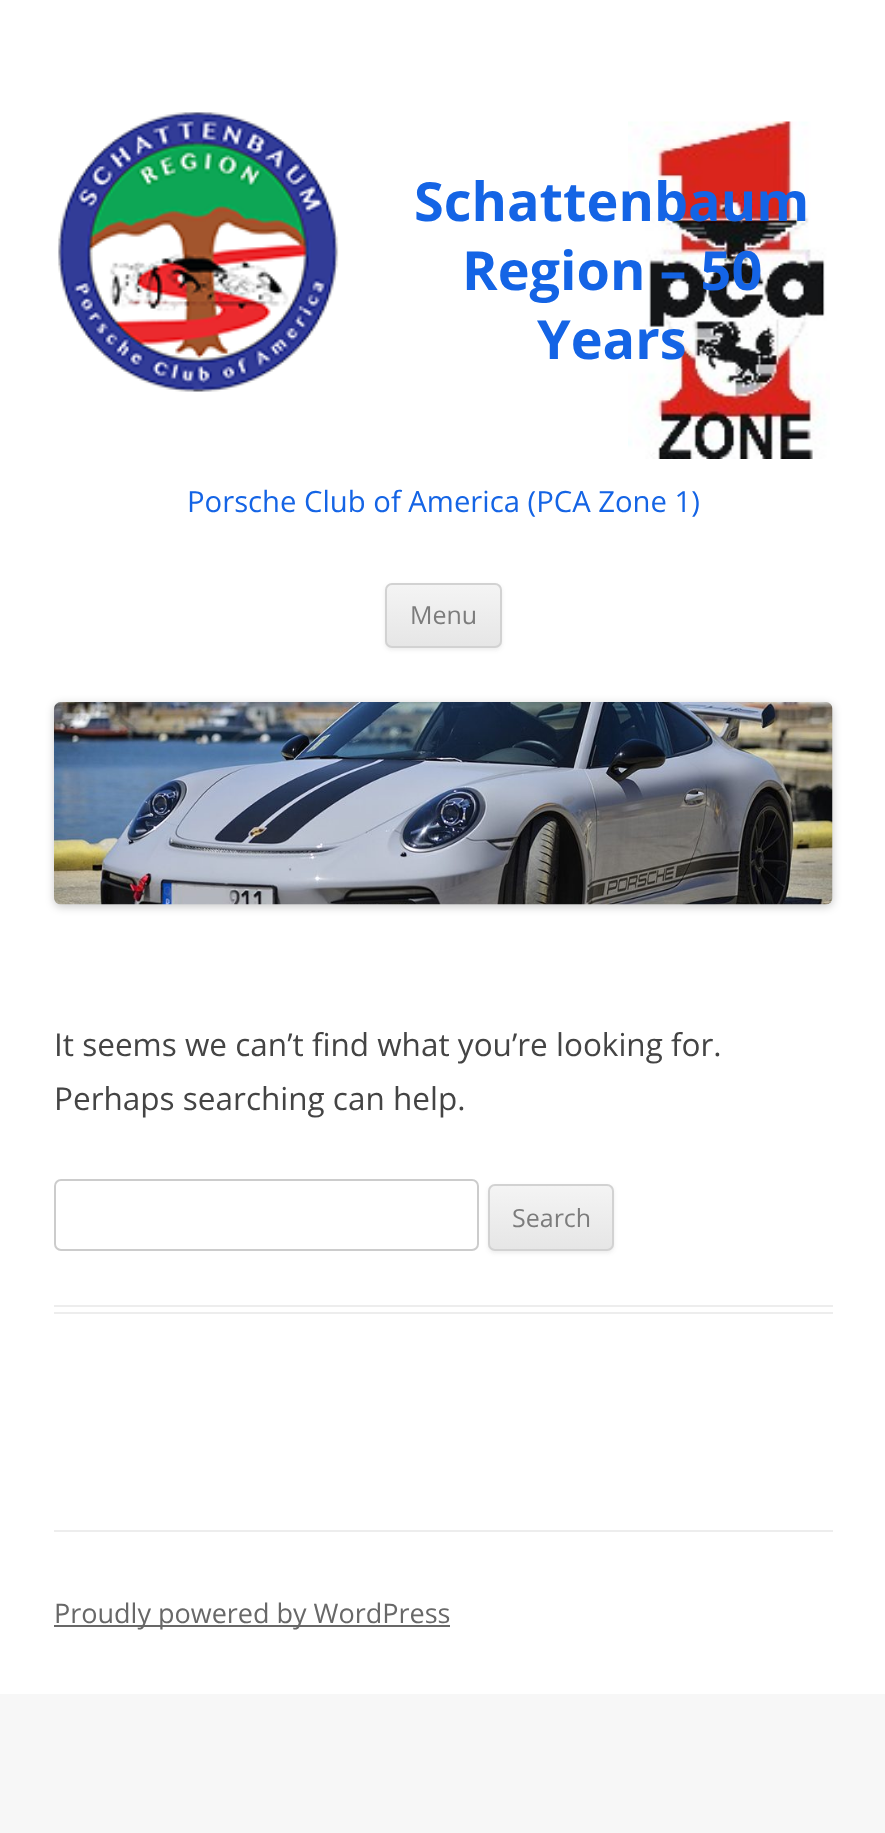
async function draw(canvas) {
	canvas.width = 885;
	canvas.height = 1833;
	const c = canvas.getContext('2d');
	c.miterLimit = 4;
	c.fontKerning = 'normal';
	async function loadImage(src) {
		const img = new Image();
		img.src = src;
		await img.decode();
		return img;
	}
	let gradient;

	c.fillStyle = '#f7f7f7';
	c.fillRect(0, 0, 885, 1833);
	c.fillStyle = '#fff';
	c.fillRect(0, 0, 885, 1694);
	c.drawImage(await loadImage('img1.png'), 628, 121, 202, 338);
	c.drawImage(await loadImage('img2.png'), 58, 112, 281, 280);
	c.font = 'bold 54px Open Sans';
	c.fillStyle = '#1464e5';
	for (const [text, x, y] of [
		['Schattenbaum', 414, 221],
		['Region – 50', 462, 290],
		['Years', 537, 359],
	]) {
		c.fillText(text, x, y);
	}
	c.font = '29.25px Open Sans';
	c.fillText('Porsche Club of America (PCA Zone 1)', 187, 512);
	c.fillStyle = '#4040401a';
	c.filter = 'blur(2px)';
	c.beginPath();
	c.roundRect(385, 585, 117, 65, 7);
	c.fill();
	c.filter = 'none';
	c.save();
	c.beginPath();
	c.roundRect(385, 583, 117, 65, 7);
	c.clip();
	gradient = c.createLinearGradient(443, 585, 443, 646);
	gradient.addColorStop(0, '#f4f4f4');
	gradient.addColorStop(1, '#e6e6e6');
	c.fillStyle = gradient;
	c.fillRect(385, 585, 117, 61);
	c.restore();
	c.beginPath();
	c.roundRect(386, 584, 115, 63, 6);
	c.strokeStyle = '#d2d2d2';
	c.lineWidth = 2;
	c.stroke();
	c.font = '25px Open Sans';
	c.fillStyle = '#7c7c7c';
	c.fillText('Menu', 410, 624);
	c.fillStyle = '#00000033';
	c.filter = 'blur(4.5px)';
	c.beginPath();
	c.roundRect(54, 704, 779, 203, 7);
	c.fill();
	c.filter = 'none';
	c.drawImage(await loadImage('img3.png'), 54, 702, 779, 203);
	c.fillStyle = '#ededed';
	c.fillRect(54, 1305, 779, 2);
	c.fillRect(54, 1312, 779, 2);
	c.font = '31.5px Open Sans';
	c.fillStyle = '#444';
	c.fillText('It seems we can’t find what you’re looking for.', 54, 1056);
	c.fillText('Perhaps searching can help.', 54, 1110);
	c.beginPath();
	c.roundRect(55, 1180, 423, 70, 6);
	c.strokeStyle = '#ccc';
	c.stroke();
	c.fillStyle = '#4040401a';
	c.filter = 'blur(2px)';
	c.beginPath();
	c.roundRect(488, 1186, 126, 67, 7);
	c.fill();
	c.filter = 'none';
	c.save();
	c.beginPath();
	c.roundRect(488, 1184, 126, 67, 7);
	c.clip();
	gradient = c.createLinearGradient(551, 1186, 551, 1249);
	gradient.addColorStop(0, '#f4f4f4');
	gradient.addColorStop(1, '#e6e6e6');
	c.fillStyle = gradient;
	c.fillRect(488, 1186, 126, 63);
	c.restore();
	c.beginPath();
	c.roundRect(489, 1185, 124, 65, 6);
	c.strokeStyle = '#d2d2d2';
	c.stroke();
	c.font = '25px Open Sans';
	c.fillStyle = '#7c7c7c';
	c.fillText('Search', 512, 1227);
	c.fillStyle = '#ededed';
	c.fillRect(54, 1530, 779, 2);
	c.fillStyle = '#686868';
	c.fillRect(54, 1625, 396, 2);
	c.font = '27px Open Sans';
	c.fillText('Proudly powered by WordPress', 54, 1623);
}

draw(document.querySelector('canvas'));
